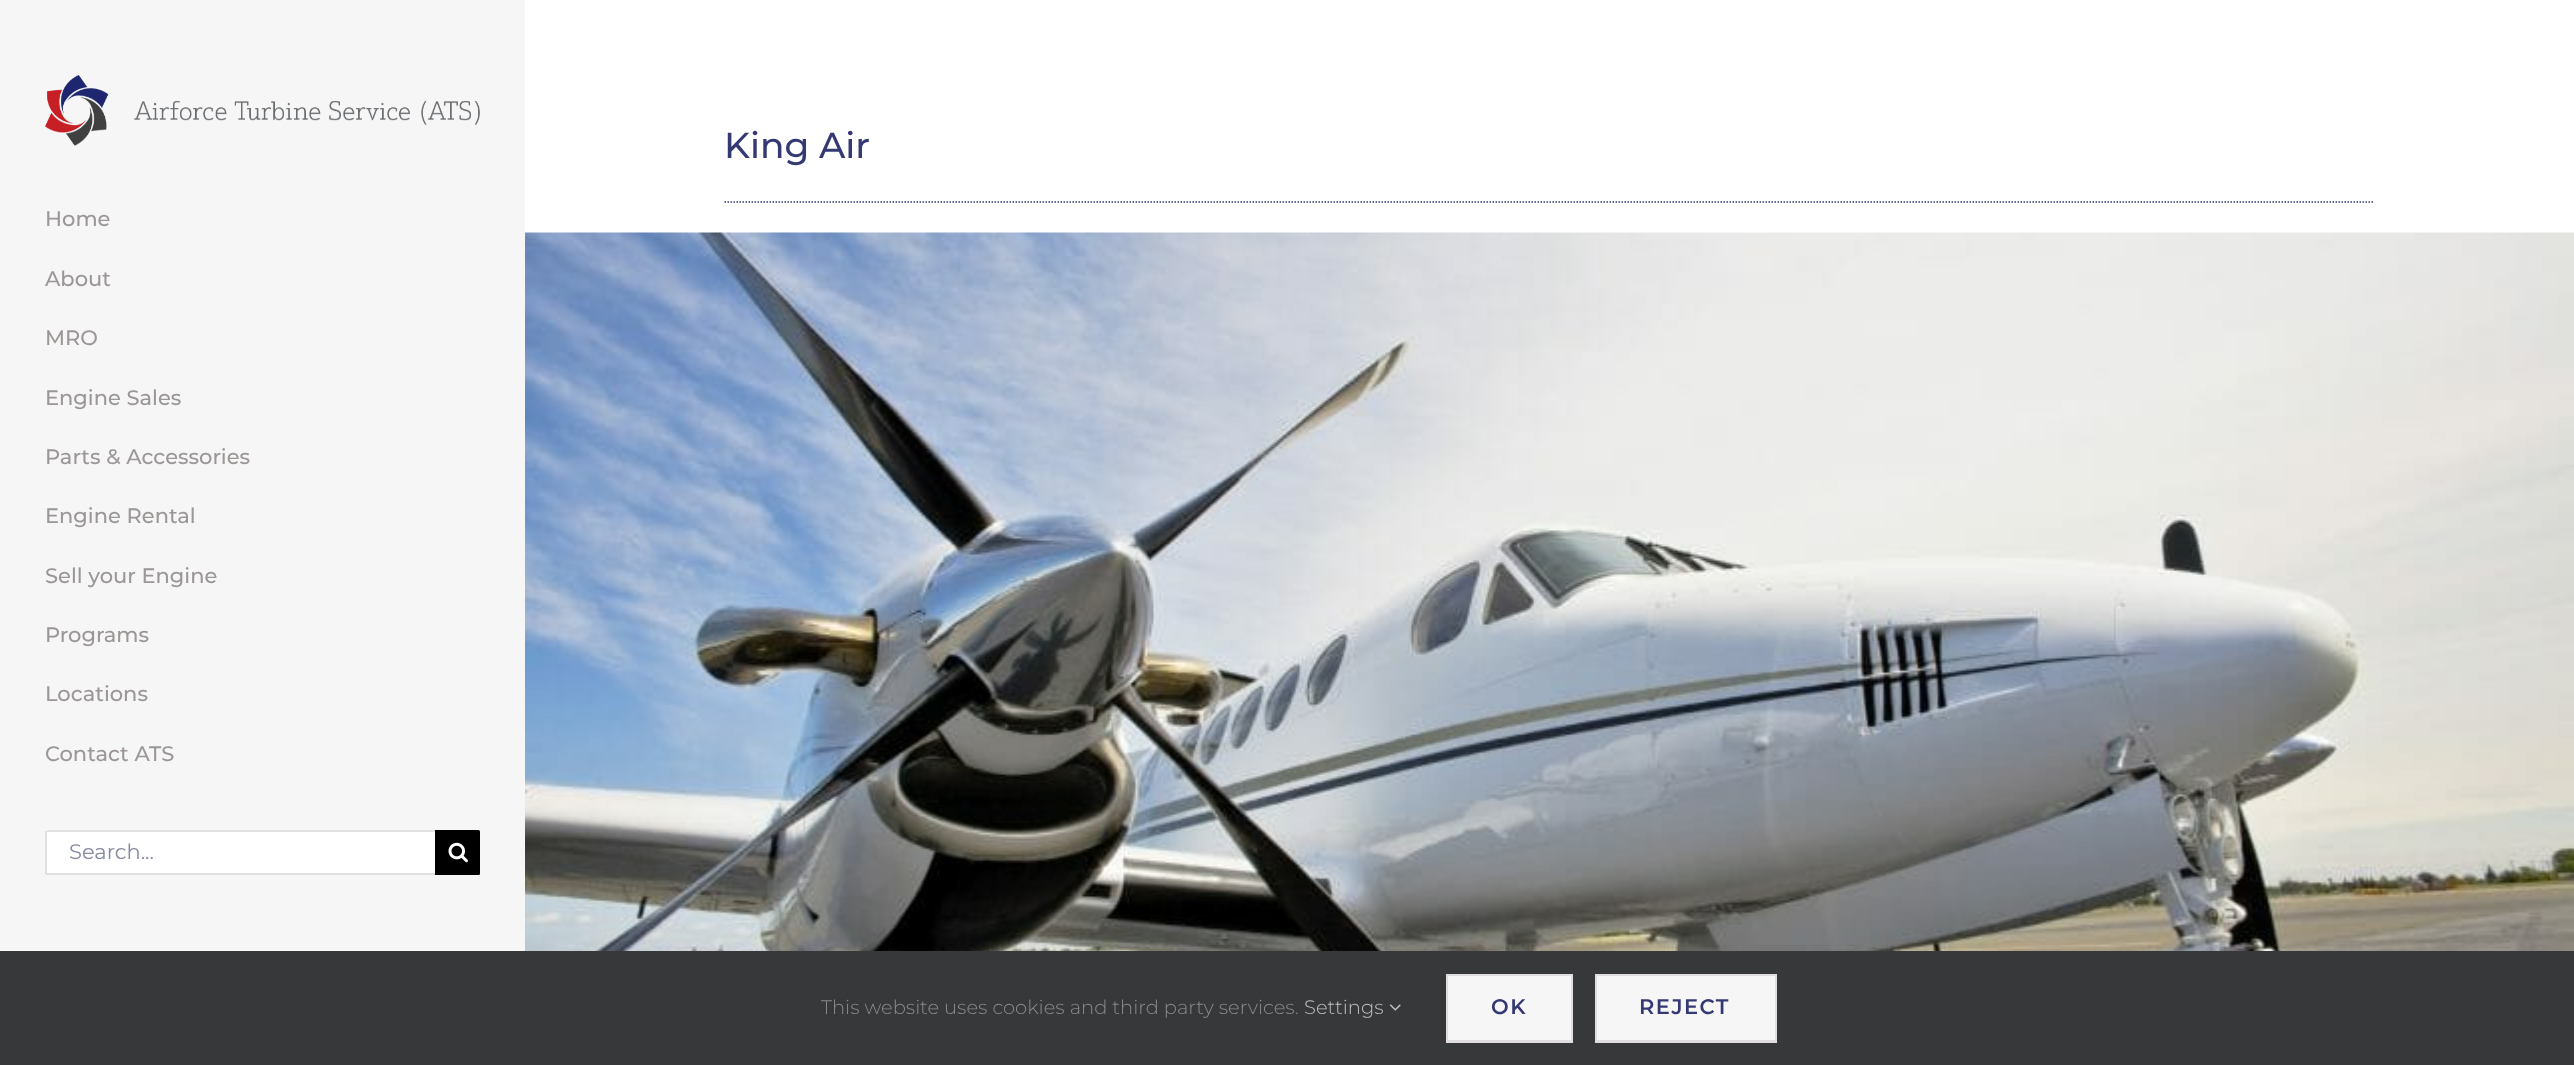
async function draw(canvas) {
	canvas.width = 2574;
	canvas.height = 1065;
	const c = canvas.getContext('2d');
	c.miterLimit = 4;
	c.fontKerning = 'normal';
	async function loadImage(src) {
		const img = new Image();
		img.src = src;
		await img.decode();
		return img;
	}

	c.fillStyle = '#fff';
	c.fillRect(0, 0, 2574, 1065);
	c.font = '500 36px Montserrat';
	c.fillStyle = '#343973';
	c.fillText('King Air', 724, 158);
	c.beginPath();
	c.moveTo(724.5, 202);
	c.lineTo(2374.5, 202);
	c.strokeStyle = '#343973';
	c.lineWidth = 1.5;
	c.setLineDash([1.5, 1.5]);
	c.stroke();
	c.drawImage(await loadImage('img1.png'), 525, 232, 2049, 719);
	c.fillStyle = '#f6f6f6';
	c.fillRect(0, 0, 525, 951);
	c.drawImage(await loadImage('img2.png'), 45, 75, 435, 71);
	c.font = '500 21px Montserrat';
	c.fillStyle = '#9b9796';
	for (const [text, x, y] of [
		['Home', 45, 226],
		['About', 45, 286],
		['MRO', 45, 345],
		['Engine Sales', 45, 405],
		['Parts & Accessories', 45, 464],
		['Engine Rental', 45, 523],
		['Sell your Engine', 45, 583],
		['Programs', 45, 642],
		['Locations', 45, 701],
		['Contact ATS', 45, 761],
	]) {
		c.fillText(text, x, y);
	}
	c.fillStyle = '#fff';
	c.beginPath();
	c.roundRect(45, 830, 390, 45, [1.5, 0, 0, 1.5]);
	c.fill();
	c.fillStyle = '#e0e0e0';
	c.fillRect(47, 830, 388, 2);
	c.fillRect(47, 873, 388, 2);
	c.beginPath();
	c.roundRect(45, 831, 2, 44, [0, 0, 0, 1.5]);
	c.fill();
	c.font = '21px Montserrat';
	c.fillStyle = '#858a9f';
	c.fillText('Search...', 69, 859);
	c.fillStyle = '#000';
	c.beginPath();
	c.roundRect(435, 830, 45, 45, [0, 1.5, 1.5, 0]);
	c.fill();
	c.drawImage(await loadImage('img3.png'), 448, 842, 20, 21);
	c.fillStyle = '#363839';
	c.fillRect(0, 951, 2574, 114);
	c.font = '300 19.5px Montserrat';
	c.fillStyle = '#8c8989';
	c.fillText('This website uses cookies and third party services.', 821, 1014);
	c.fillStyle = '#bfbfbf';
	c.fillText('Settings', 1304, 1014);
	c.drawImage(await loadImage('img4.png'), 1389, 1004, 12, 7);
	for (const [x, y, w, h, color] of [
		[1448, 976, 123, 64, '#f6f6f6'],
		[1446, 974, 126, 2, '#e0dede'],
		[1571, 974, 2, 69, '#e0dede'],
		[1446, 1040, 126, 3, '#e0dede'],
		[1446, 974, 2, 69, '#e0dede'],
	]) {
		c.fillStyle = color;
		c.fillRect(x, y, w, h);
	}
	c.letterSpacing = '1.5px';
	c.font = '600 21px Montserrat';
	c.fillStyle = '#343973';
	c.fillText('OK', 1491, 1014);
	for (const [x, y, w, h, color] of [
		[1597, 976, 178, 64, '#f6f6f6'],
		[1595, 974, 181, 2, '#e0dede'],
		[1775, 974, 2, 69, '#e0dede'],
		[1595, 1040, 181, 3, '#e0dede'],
		[1595, 974, 2, 69, '#e0dede'],
	]) {
		c.fillStyle = color;
		c.fillRect(x, y, w, h);
	}
	c.fillStyle = '#343973';
	c.fillText('REJECT', 1639, 1014);
}

draw(document.querySelector('canvas'));
